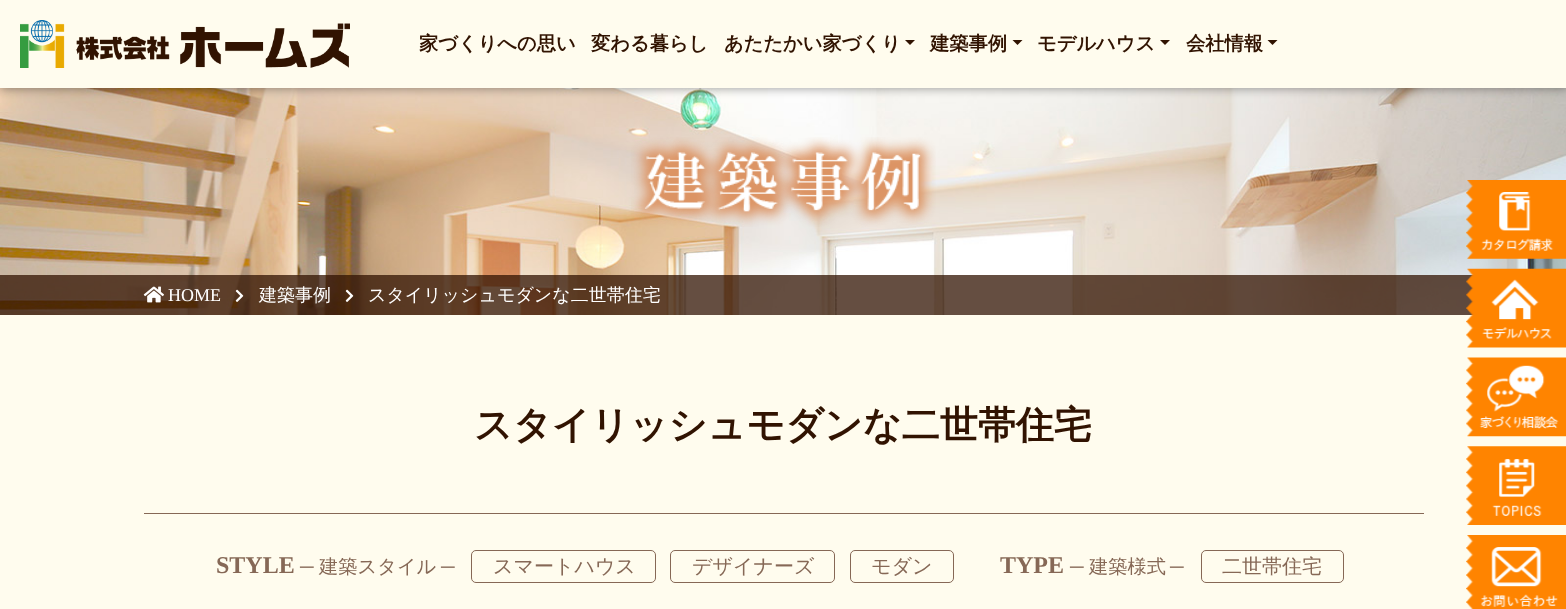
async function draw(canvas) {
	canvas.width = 1566;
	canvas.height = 609;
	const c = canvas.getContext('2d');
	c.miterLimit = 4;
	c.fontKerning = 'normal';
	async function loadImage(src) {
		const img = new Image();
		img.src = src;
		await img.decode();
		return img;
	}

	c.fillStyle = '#fffcee';
	c.fillRect(0, 0, 1566, 609);
	c.drawImage(await loadImage('img2.png'), 0, 88, 1566, 227);
	c.fillStyle = '#00000059';
	c.filter = 'blur(5px)';
	c.beginPath();
	c.rect(1, 1, 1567, 88);
	c.fill();
	c.filter = 'none';
	c.fillStyle = '#fffcee';
	c.fillRect(0, 0, 1566, 88);
	c.drawImage(await loadImage('img1.png'), 20, 20, 330, 48);
	c.font = 'bold 19.25px WenQuanYi Zen Hei';
	c.fillStyle = '#311301';
	for (const [text, x, y] of [
		['家づくりへの思い', 419, 50],
		['変わる暮らし', 591, 50],
		['あたたかい家づくり', 724, 50],
	]) {
		c.fillText(text, x, y);
	}
	c.beginPath();
	c.moveTo(905, 40);
	c.lineTo(915, 40);
	c.lineTo(910, 45);
	c.closePath();
	c.fill();
	c.fillText('建築事例', 930, 50);
	c.beginPath();
	c.moveTo(1012.5, 40);
	c.lineTo(1022.5, 40);
	c.lineTo(1017.5, 45);
	c.closePath();
	c.fill();
	c.fillText('モデルハウス', 1037, 50);
	c.beginPath();
	c.moveTo(1160, 40);
	c.lineTo(1170, 40);
	c.lineTo(1165, 45);
	c.closePath();
	c.fill();
	c.fillText('会社情報', 1186, 50);
	c.beginPath();
	c.moveTo(1267.5, 40);
	c.lineTo(1277.5, 40);
	c.lineTo(1272.5, 45);
	c.closePath();
	c.fill();
	c.drawImage(await loadImage('img3.png'), 631, 137, 305, 90);
	c.fillStyle = '#311301bf';
	c.fillRect(0, 275, 1474, 40);
	c.drawImage(await loadImage('img4.png'), 143, 286, 21, 17);
	c.font = '18px Liberation Serif';
	c.fillStyle = '#fff';
	c.fillText('HOME', 168, 301);
	c.drawImage(await loadImage('img5.png'), 235, 289, 9, 13);
	c.font = '500 18px WenQuanYi Zen Hei';
	c.fillText('建築事例', 259, 301);
	c.drawImage(await loadImage('img6.png'), 345, 289, 9, 13);
	c.fillText('スタイリッシュモダンな二世帯住宅', 368, 301);
	c.drawImage(await loadImage('img7.png'), 1466, 180, 100, 79);
	c.drawImage(await loadImage('img8.png'), 1466, 268, 100, 80);
	c.drawImage(await loadImage('img9.png'), 1466, 357, 100, 80);
	c.drawImage(await loadImage('img10.png'), 1466, 446, 100, 79);
	c.drawImage(await loadImage('img11.png'), 1466, 535, 100, 74);
	c.font = 'bold 38px WenQuanYi Zen Hei';
	c.fillStyle = '#311301';
	c.fillText('スタイリッシュモダンな二世帯住宅', 474, 438);
	c.fillStyle = '#866856';
	c.fillRect(144, 513, 1280, 1);
	c.font = 'bold 24px Liberation Serif';
	c.fillText('STYLE', 216, 573);
	c.font = '19.25px Liberation Serif';
	c.fillText('─', 300, 573);
	c.font = '500 19.25px WenQuanYi Zen Hei';
	c.fillText('建築スタイル', 319, 573);
	c.font = '19.25px Liberation Serif';
	c.fillText('─', 441, 573);
	c.beginPath();
	c.roundRect(471.5, 550.5, 184, 32, 4.5);
	c.strokeStyle = '#866856';
	c.stroke();
	c.font = '500 20px WenQuanYi Zen Hei';
	c.fillText('スマートハウス', 493, 573);
	c.beginPath();
	c.roundRect(670.5, 550.5, 164, 32, 4.5);
	c.stroke();
	c.fillText('デザイナーズ', 692, 573);
	c.beginPath();
	c.roundRect(850.5, 550.5, 103, 32, 4.5);
	c.stroke();
	c.fillText('モダン', 871, 573);
	c.font = 'bold 24px Liberation Serif';
	c.fillText('TYPE', 1000, 573);
	c.font = '19.25px Liberation Serif';
	c.fillText('─', 1070, 573);
	c.font = '500 19.25px WenQuanYi Zen Hei';
	c.fillText('建築様式', 1089, 573);
	c.font = '19.25px Liberation Serif';
	c.fillText('─', 1170, 573);
	c.beginPath();
	c.roundRect(1201.5, 550.5, 142, 32, 4.5);
	c.stroke();
	c.font = '500 20px WenQuanYi Zen Hei';
	c.fillText('二世帯住宅', 1222, 573);
}

draw(document.querySelector('canvas'));
